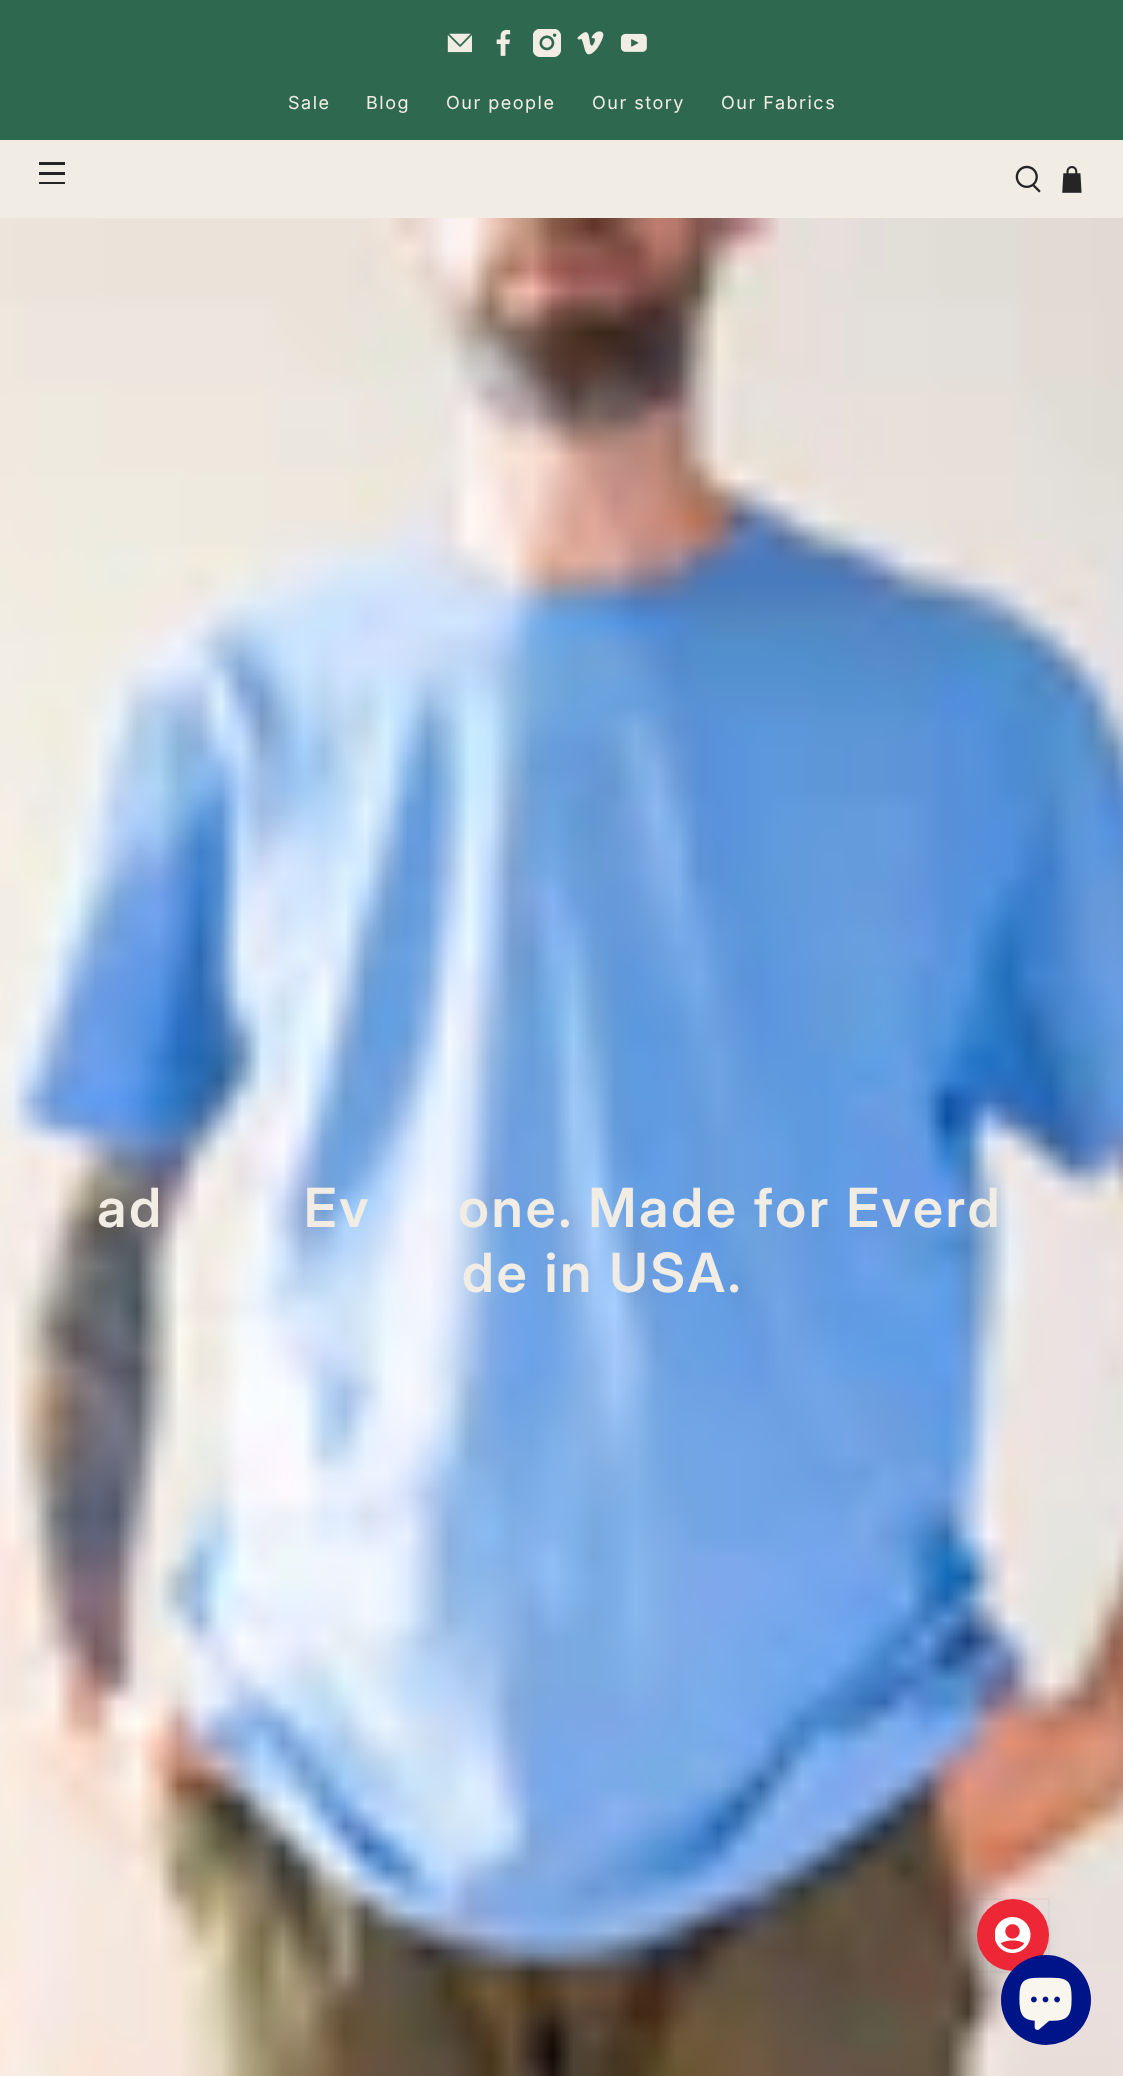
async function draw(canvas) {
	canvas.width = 1123;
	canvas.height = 2076;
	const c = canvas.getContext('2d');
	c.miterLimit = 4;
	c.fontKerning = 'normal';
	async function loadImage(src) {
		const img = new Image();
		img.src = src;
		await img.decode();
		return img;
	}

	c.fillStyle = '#f1ede5';
	c.fillRect(0, 0, 1123, 2076);
	c.fillStyle = '#2e684e';
	c.fillRect(0, 0, 1123, 140);
	c.drawImage(await loadImage('img1.png'), 447, 33, 25, 20);
	c.drawImage(await loadImage('img2.png'), 496, 29, 15, 27);
	c.drawImage(await loadImage('img3.png'), 533, 29, 28, 28);
	c.drawImage(await loadImage('img4.png'), 577, 31, 27, 24);
	c.drawImage(await loadImage('img5.png'), 620, 33, 27, 19);
	c.letterSpacing = '1.5px';
	c.font = '18px Inter';
	c.fillStyle = '#f1ede5';
	for (const [text, x, y] of [
		['Sale', 288, 109],
		['Blog', 366, 109],
		['Our people', 446, 109],
		['Our story', 592, 109],
		['Our Fabrics', 721, 109],
	]) {
		c.fillText(text, x, y);
	}
	for (const [x, y, w, h, color] of [
		[39, 162, 26, 3, '#252525'],
		[39, 172, 26, 3, '#252525'],
		[39, 182, 26, 2, '#252525'],
	]) {
		c.fillStyle = color;
		c.fillRect(x, y, w, h);
	}
	c.drawImage(await loadImage('img6.png'), 1015, 165, 26, 28);
	c.drawImage(await loadImage('img7.png'), 1062, 166, 20, 27);
	c.drawImage(await loadImage('img8.png'), 0, 218, 1123, 1858);
	c.letterSpacing = '3px';
	c.font = '600 54px Inter';
	c.fillStyle = '#f1ede5';
	for (const [text, x, y] of [
		['ad', 97, 1227],
		['Ev', 304, 1227],
		['one. Made for Everd', 458, 1227],
		['de in USA.', 462, 1292],
	]) {
		c.fillText(text, x, y);
	}
	c.fillStyle = '#373f4714';
	c.filter = 'blur(18px)';
	c.beginPath();
	c.roundRect(977, 1911, 72, 72, 36);
	c.fill();
	c.filter = 'none';
	c.filter = 'blur(3px)';
	c.beginPath();
	c.roundRect(977, 1905, 72, 72, 36);
	c.fill();
	c.filter = 'none';
	c.strokeStyle = '#373f470a';
	c.lineWidth = 2;
	c.strokeRect(976, 1899, 73, 73);
	c.fillStyle = '#ee2737';
	c.beginPath();
	c.arc(1013, 1935, 36, 0, 2 * Math.PI);
	c.fill();
	c.drawImage(await loadImage('img9.png'), 995, 1917, 36, 36);
	c.fillStyle = '#001489';
	c.beginPath();
	c.arc(1046, 2000, 45, 0, 2 * Math.PI);
	c.fill();
	c.drawImage(await loadImage('img10.png'), 1019, 1977, 53, 53);
}

draw(document.querySelector('canvas'));
